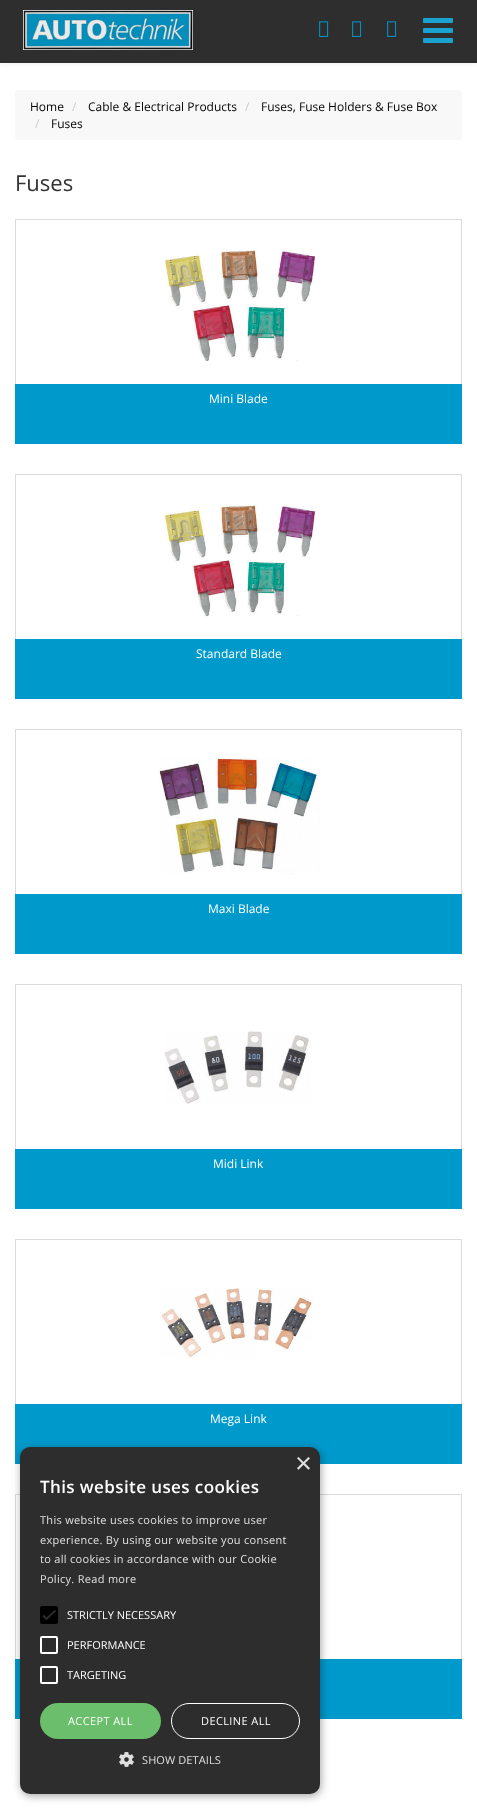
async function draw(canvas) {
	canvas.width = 477;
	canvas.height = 1814;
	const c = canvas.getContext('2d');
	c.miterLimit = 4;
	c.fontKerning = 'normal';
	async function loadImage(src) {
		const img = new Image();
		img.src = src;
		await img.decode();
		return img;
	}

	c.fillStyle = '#fff';
	c.fillRect(0, 0, 477, 1814);
	c.fillStyle = '#1a1a1a12';
	c.filter = 'blur(2.5px)';
	c.beginPath();
	c.rect(0, 1, 477, 63);
	c.fill();
	c.filter = 'none';
	c.fillStyle = '#2e2e2e';
	c.fillRect(0, 0, 477, 63);
	c.drawImage(await loadImage('img1.png'), 23, 10, 170, 40);
	c.drawImage(await loadImage('img2.png'), 319, 21, 10, 16);
	c.drawImage(await loadImage('img2.png'), 352, 21, 10, 16);
	c.drawImage(await loadImage('img2.png'), 387, 21, 10, 16);
	c.fillStyle = '#1aa3d0';
	c.beginPath();
	c.roundRect(423, 18, 30, 5, 1);
	c.fill();
	c.beginPath();
	c.roundRect(423, 28, 30, 5, 1);
	c.fill();
	c.beginPath();
	c.roundRect(423, 38, 30, 5, 1);
	c.fill();
	c.fillStyle = '#f8f8f8';
	c.beginPath();
	c.roundRect(15, 90, 447, 50, 4);
	c.fill();
	c.font = '12px Open Sans';
	c.fillStyle = '#000';
	c.fillText('Home', 30, 111);
	c.fillStyle = '#ccc';
	c.fillText('/', 72, 111);
	c.fillStyle = '#000';
	c.fillText('Cable & Electrical Products', 88, 111);
	c.fillStyle = '#ccc';
	c.fillText('/', 245, 111);
	c.fillStyle = '#000';
	c.fillText('Fuses, Fuse Holders & Fuse Box', 261, 111);
	c.fillStyle = '#ccc';
	c.fillText('/', 35, 128);
	c.fillStyle = '#000';
	c.fillText('Fuses', 51, 128);
	c.font = '22px Open Sans';
	c.fillStyle = '#333';
	c.fillText('Fuses', 15, 191);
	for (const [x, y, w, h, color] of [
		[15, 219, 447, 1, '#dbdbdb'],
		[461, 219, 1, 165, '#dbdbdb'],
		[15, 219, 1, 165, '#dbdbdb'],
	]) {
		c.fillStyle = color;
		c.fillRect(x, y, w, h);
	}
	c.drawImage(await loadImage('img3.png'), 163, 250, 153, 112);
	c.fillStyle = '#0099cb';
	c.fillRect(15, 384, 447, 60);
	c.font = '12px Open Sans';
	c.fillStyle = '#fff';
	c.fillText('Mini Blade', 209, 403);
	for (const [x, y, w, h, color] of [
		[15, 474, 447, 1, '#dbdbdb'],
		[461, 474, 1, 165, '#dbdbdb'],
		[15, 474, 1, 165, '#dbdbdb'],
	]) {
		c.fillStyle = color;
		c.fillRect(x, y, w, h);
	}
	c.drawImage(await loadImage('img4.png'), 163, 505, 153, 112);
	c.fillStyle = '#0099cb';
	c.fillRect(15, 639, 447, 60);
	c.fillStyle = '#fff';
	c.fillText('Standard Blade', 196, 658);
	for (const [x, y, w, h, color] of [
		[15, 729, 447, 1, '#dbdbdb'],
		[461, 729, 1, 165, '#dbdbdb'],
		[15, 729, 1, 165, '#dbdbdb'],
	]) {
		c.fillStyle = color;
		c.fillRect(x, y, w, h);
	}
	c.drawImage(await loadImage('img5.png'), 159, 757, 161, 117);
	c.fillStyle = '#0099cb';
	c.fillRect(15, 894, 447, 60);
	c.fillStyle = '#fff';
	c.fillText('Maxi Blade', 208, 913);
	for (const [x, y, w, h, color] of [
		[15, 984, 447, 1, '#dbdbdb'],
		[461, 984, 1, 165, '#dbdbdb'],
		[15, 984, 1, 165, '#dbdbdb'],
	]) {
		c.fillStyle = color;
		c.fillRect(x, y, w, h);
	}
	c.drawImage(await loadImage('img6.png'), 164, 1031, 147, 73);
	c.fillStyle = '#0099cb';
	c.fillRect(15, 1149, 447, 60);
	c.fillStyle = '#fff';
	c.fillText('Midi Link', 213, 1168);
	for (const [x, y, w, h, color] of [
		[15, 1239, 447, 1, '#dbdbdb'],
		[461, 1239, 1, 165, '#dbdbdb'],
		[15, 1239, 1, 165, '#dbdbdb'],
	]) {
		c.fillStyle = color;
		c.fillRect(x, y, w, h);
	}
	c.drawImage(await loadImage('img7.png'), 160, 1288, 152, 70);
	c.fillStyle = '#0099cb';
	c.fillRect(15, 1404, 447, 60);
	c.fillStyle = '#fff';
	c.fillText('Mega Link', 210, 1423);
	for (const [x, y, w, h, color] of [
		[15, 1494, 447, 1, '#dbdbdb'],
		[461, 1494, 1, 165, '#dbdbdb'],
		[15, 1494, 1, 165, '#dbdbdb'],
		[15, 1659, 447, 60, '#0099cb'],
	]) {
		c.fillStyle = color;
		c.fillRect(x, y, w, h);
	}
	c.fillStyle = '#00000059';
	c.filter = 'blur(4px)';
	c.beginPath();
	c.roundRect(21, 1449, 300, 347, 10);
	c.fill();
	c.filter = 'none';
	c.fillStyle = '#2d2d2d';
	c.beginPath();
	c.roundRect(20, 1447, 300, 347, 10);
	c.fill();
	c.font = '29px Liberation Sans';
	c.fillStyle = '#e0e0e0';
	c.fillText('×', 295, 1473);
	c.letterSpacing = '0.4px';
	c.font = '600 17px Open Sans';
	c.fillStyle = '#fff';
	c.fillText('This website uses cookies', 40, 1493);
	c.letterSpacing = '0.3px';
	c.font = '11px Open Sans';
	c.fillStyle = '#e0e0e0';
	for (const [text, x, y] of [
		['This website uses cookies to improve user', 40, 1524],
		['experience. By using our website you consent', 40, 1544],
		['to all cookies in accordance with our Cookie', 40, 1563],
		['Policy. Read more', 40, 1583],
	]) {
		c.fillText(text, x, y);
	}
	c.fillStyle = '#000';
	c.beginPath();
	c.roundRect(40, 1606, 18, 18, 2);
	c.fill();
	c.beginPath();
	c.moveTo(43, 1615.5);
	c.lineTo(46.5, 1619);
	c.lineTo(55.5, 1610.5);
	c.strokeStyle = '#2d2d2d';
	c.lineWidth = 1.8;
	c.stroke();
	c.letterSpacing = '0px';
	c.fillStyle = '#fff';
	c.fillText('STRICTLY NECESSARY', 67, 1619);
	c.beginPath();
	c.roundRect(41, 1637, 16, 16, 1);
	c.strokeStyle = '#fff';
	c.lineWidth = 2;
	c.stroke();
	c.fillText('PERFORMANCE', 67, 1649);
	c.beginPath();
	c.roundRect(41, 1667, 16, 16, 1);
	c.stroke();
	c.fillText('TARGETING', 67, 1679);
	c.fillStyle = '#6bbe6b';
	c.beginPath();
	c.roundRect(40, 1703, 121, 36, 18);
	c.fill();
	c.letterSpacing = '0.4px';
	c.fillStyle = '#fff';
	c.fillText('ACCEPT ALL', 68, 1725);
	c.beginPath();
	c.roundRect(171.5, 1703.5, 128, 35, 17.5);
	c.lineWidth = 1;
	c.stroke();
	c.fillText('DECLINE ALL', 201, 1725);
	c.drawImage(await loadImage('img8.png'), 119, 1752, 15, 15);
	c.letterSpacing = '0.1px';
	c.fillStyle = '#e0e0e0';
	c.fillText('SHOW DETAILS', 142, 1764);
}

draw(document.querySelector('canvas'));
